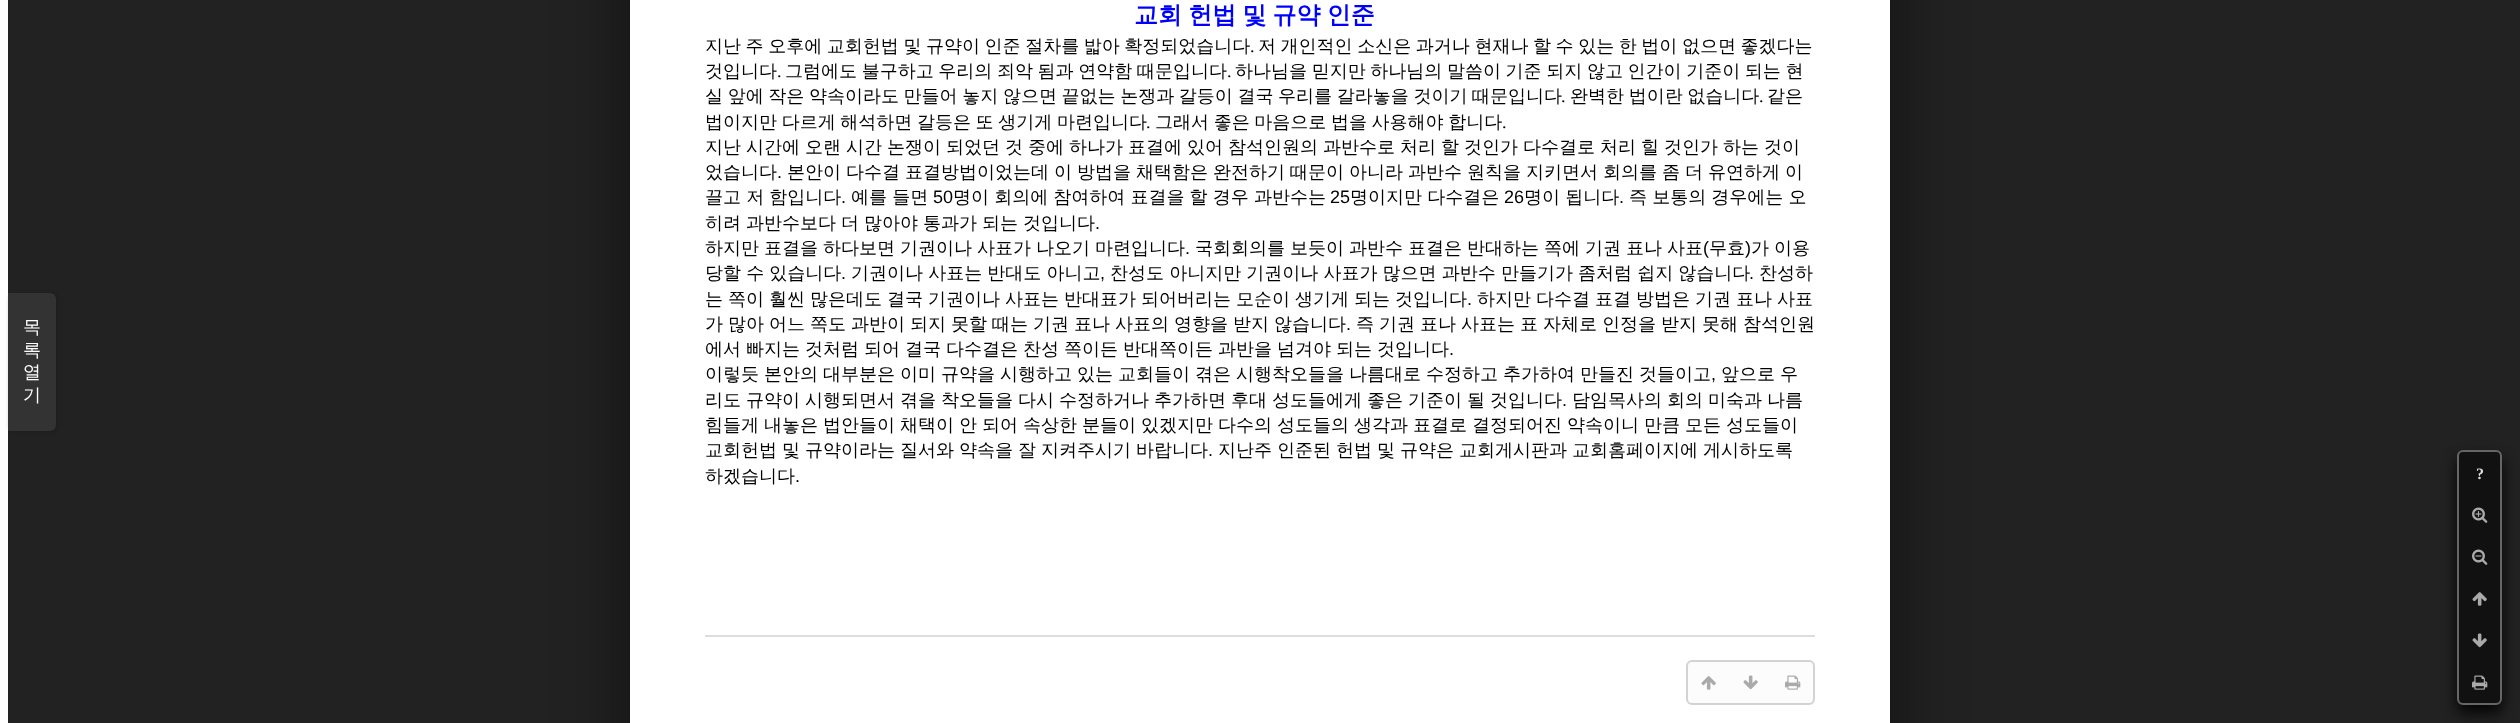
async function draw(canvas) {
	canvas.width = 2520;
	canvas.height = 723;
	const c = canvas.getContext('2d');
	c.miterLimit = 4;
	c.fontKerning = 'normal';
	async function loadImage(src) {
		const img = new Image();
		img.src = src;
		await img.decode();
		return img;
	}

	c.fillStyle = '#222';
	c.fillRect(0, 0, 2520, 723);
	c.fillStyle = '#00000080';
	c.filter = 'blur(36px)';
	c.beginPath();
	c.rect(630, -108, 1260, 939);
	c.fill();
	c.filter = 'none';
	c.fillStyle = '#fff';
	c.fillRect(630, 0, 1260, 723);
	c.fillRect(0, 0, 8, 723);
	c.fillStyle = '#00000033';
	c.filter = 'blur(2px)';
	c.beginPath();
	c.roundRect(9, 294, 48, 138, 6);
	c.fill();
	c.filter = 'none';
	c.fillStyle = '#333';
	c.beginPath();
	c.roundRect(8, 293, 48, 138, [0, 6, 6, 0]);
	c.fill();
	c.font = '500 18px WenQuanYi Zen Hei';
	c.fillStyle = '#fff';
	for (const [text, x, y] of [
		['목', 23, 333],
		['록', 23, 356],
		['열', 23, 378],
		['기', 23, 401],
	]) {
		c.fillText(text, x, y);
	}
	c.wordSpacing = '-1px';
	c.font = 'bold 24px WenQuanYi Zen Hei';
	c.fillStyle = '#00f';
	c.fillText('교회 헌법 및 규약 인준', 1134, 23);
	c.wordSpacing = '-0.8px';
	c.font = '500 18px WenQuanYi Zen Hei';
	c.fillStyle = '#000';
	c.fillText('지난 주 오후에 교회헌법 및 규약이 인준 절차를 밟아 확정되었습니다', 705, 52);
	c.wordSpacing = '0px';
	c.font = '18px Liberation Serif';
	c.fillText('.', 1250, 52);
	c.wordSpacing = '-0.8px';
	c.font = '500 18px WenQuanYi Zen Hei';
	c.fillText('저 개인적인 소신은 과거나 현재나 할 수 있는 한 법이 없으면 좋겠다는', 1258, 52);
	c.wordSpacing = '0px';
	c.fillText('것입니다', 705, 77);
	c.font = '18px Liberation Serif';
	c.fillText('.', 777, 77);
	c.wordSpacing = '-0.75px';
	c.font = '500 18px WenQuanYi Zen Hei';
	c.fillText('그럼에도 불구하고 우리의 죄악 됨과 연약함 때문입니다', 785, 77);
	c.wordSpacing = '0px';
	c.font = '18px Liberation Serif';
	c.fillText('.', 1227, 77);
	c.wordSpacing = '-0.75px';
	c.font = '500 18px WenQuanYi Zen Hei';
	c.fillText('하나님을 믿지만 하나님의 말씀이 기준 되지 않고 인간이 기준이 되는 현', 1235, 77);
	c.fillText('실 앞에 작은 약속이라도 만들어 놓지 않으면 끝없는 논쟁과 갈등이 결국 우리를 갈라놓을 것이기 때문입니다', 705, 102);
	c.wordSpacing = '0px';
	c.font = '18px Liberation Serif';
	c.fillText('.', 1561, 102);
	c.wordSpacing = '-0.75px';
	c.font = '500 18px WenQuanYi Zen Hei';
	c.fillText('완벽한 법이란 없습니다', 1570, 102);
	c.wordSpacing = '0px';
	c.font = '18px Liberation Serif';
	c.fillText('.', 1759, 102);
	c.font = '500 18px WenQuanYi Zen Hei';
	c.fillText('같은', 1767, 102);
	c.wordSpacing = '-0.75px';
	c.fillText('법이지만 다르게 해석하면 갈등은 또 생기게 마련입니다', 705, 128);
	c.wordSpacing = '0px';
	c.font = '18px Liberation Serif';
	c.fillText('.', 1146, 128);
	c.wordSpacing = '-0.75px';
	c.font = '500 18px WenQuanYi Zen Hei';
	c.fillText('그래서 좋은 마음으로 법을 사용해야 합니다', 1155, 128);
	c.wordSpacing = '0px';
	c.font = '18px Liberation Serif';
	c.fillText('.', 1502, 128);
	c.wordSpacing = '-0.4px';
	c.font = '500 18px WenQuanYi Zen Hei';
	c.fillText('지난 시간에 오랜 시간 논쟁이 되었던 것 중에 하나가 표결에 있어 참석인원의 과반수로 처리 할 것인가 다수결로 처리 힐 것인가 하는 것이', 705, 153);
	c.wordSpacing = '0px';
	c.fillText('었습니다', 705, 178);
	c.font = '18px Liberation Sans';
	c.fillText('.', 777, 178);
	c.wordSpacing = '-0.4px';
	c.font = '500 18px WenQuanYi Zen Hei';
	c.fillText('본안이 다수결 표결방법이었는데 이 방법을 채택함은 완전하기 때문이 아니라 과반수 원칙을 지키면서 회의를 좀 더 유연하게 이', 787, 178);
	c.wordSpacing = '-0.25px';
	c.fillText('끌고 저 함입니다', 705, 203);
	c.wordSpacing = '0px';
	c.font = '18px Liberation Sans';
	c.fillText('.', 841, 203);
	c.wordSpacing = '-0.25px';
	c.font = '500 18px WenQuanYi Zen Hei';
	c.fillText('예를 들면', 851, 203);
	c.wordSpacing = '0px';
	c.font = '18px Liberation Sans';
	c.fillText('50', 933, 203);
	c.wordSpacing = '-0.25px';
	c.font = '500 18px WenQuanYi Zen Hei';
	c.fillText('명이 회의에 참여하여 표결을 할 경우 과반수는', 953, 203);
	c.wordSpacing = '0px';
	c.font = '18px Liberation Sans';
	c.fillText('25', 1330, 203);
	c.wordSpacing = '-0.25px';
	c.font = '500 18px WenQuanYi Zen Hei';
	c.fillText('명이지만 다수결은', 1350, 203);
	c.wordSpacing = '0px';
	c.font = '18px Liberation Sans';
	c.fillText('26', 1504, 203);
	c.wordSpacing = '-0.25px';
	c.font = '500 18px WenQuanYi Zen Hei';
	c.fillText('명이 됩니다', 1524, 203);
	c.wordSpacing = '0px';
	c.font = '18px Liberation Sans';
	c.fillText('.', 1619, 203);
	c.wordSpacing = '-0.25px';
	c.font = '500 18px WenQuanYi Zen Hei';
	c.fillText('즉 보통의 경우에는 오', 1629, 203);
	c.wordSpacing = '-0.4px';
	c.fillText('히려 과반수보다 더 많아야 통과가 되는 것입니다', 705, 229);
	c.wordSpacing = '0px';
	c.font = '18px Liberation Sans';
	c.fillText('.', 1095, 229);
	c.wordSpacing = '-0.4px';
	c.font = '500 18px WenQuanYi Zen Hei';
	c.fillText('하지만 표결을 하다보면 기권이나 사표가 나오기 마련입니다', 705, 254);
	c.wordSpacing = '0px';
	c.font = '18px Liberation Sans';
	c.fillText('.', 1185, 254);
	c.wordSpacing = '-0.4px';
	c.font = '500 18px WenQuanYi Zen Hei';
	c.fillText('국회회의를 보듯이 과반수 표결은 반대하는 쪽에 기권 표나 사표', 1195, 254);
	c.wordSpacing = '0px';
	c.font = '18px Liberation Sans';
	c.fillText('(', 1703, 254);
	c.font = '500 18px WenQuanYi Zen Hei';
	c.fillText('무효', 1709, 254);
	c.font = '18px Liberation Sans';
	c.fillText(')', 1745, 254);
	c.wordSpacing = '-0.4px';
	c.font = '500 18px WenQuanYi Zen Hei';
	c.fillText('가 이용', 1751, 254);
	c.wordSpacing = '-0.25px';
	c.fillText('당할 수 있습니다', 705, 279);
	c.wordSpacing = '0px';
	c.font = '18px Liberation Sans';
	c.fillText('.', 841, 279);
	c.wordSpacing = '-0.25px';
	c.font = '500 18px WenQuanYi Zen Hei';
	c.fillText('기권이나 사표는 반대도 아니고', 851, 279);
	c.wordSpacing = '0px';
	c.font = '18px Liberation Sans';
	c.fillText(',', 1100, 279);
	c.wordSpacing = '-0.25px';
	c.font = '500 18px WenQuanYi Zen Hei';
	c.fillText('찬성도 아니지만 기권이나 사표가 많으면 과반수 만들기가 좀처럼 쉽지 않습니다', 1110, 279);
	c.wordSpacing = '0px';
	c.font = '18px Liberation Sans';
	c.fillText('.', 1749, 279);
	c.font = '500 18px WenQuanYi Zen Hei';
	c.fillText('찬성하', 1759, 279);
	c.wordSpacing = '-0.4px';
	c.fillText('는 쪽이 훨씬 많은데도 결국 기권이나 사표는 반대표가 되어버리는 모순이 생기게 되는 것입니다', 705, 305);
	c.wordSpacing = '0px';
	c.font = '18px Liberation Sans';
	c.fillText('.', 1467, 305);
	c.wordSpacing = '-0.4px';
	c.font = '500 18px WenQuanYi Zen Hei';
	c.fillText('하지만 다수결 표결 방법은 기권 표나 사표', 1477, 305);
	c.fillText('가 많아 어느 쪽도 과반이 되지 못할 때는 기권 표나 사표의 영향을 받지 않습니다', 705, 330);
	c.wordSpacing = '0px';
	c.font = '18px Liberation Sans';
	c.fillText('.', 1346, 330);
	c.wordSpacing = '-0.4px';
	c.font = '500 18px WenQuanYi Zen Hei';
	c.fillText('즉 기권 표나 사표는 표 자체로 인정을 받지 못해 참석인원', 1356, 330);
	c.fillText('에서 빠지는 것처럼 되어 결국 다수결은 찬성 쪽이든 반대쪽이든 과반을 넘겨야 되는 것입니다', 705, 355);
	c.wordSpacing = '0px';
	c.font = '18px Liberation Sans';
	c.fillText('.', 1449, 355);
	c.wordSpacing = '-0.4px';
	c.font = '500 18px WenQuanYi Zen Hei';
	c.fillText('이렇듯 본안의 대부분은 이미 규약을 시행하고 있는 교회들이 겪은 시행착오들을 나름대로 수정하고 추가하여 만들진 것들이고', 705, 380);
	c.wordSpacing = '0px';
	c.font = '18px Liberation Sans';
	c.fillText(',', 1711, 380);
	c.wordSpacing = '-0.4px';
	c.font = '500 18px WenQuanYi Zen Hei';
	c.fillText('앞으로 우', 1721, 380);
	c.fillText('리도 규약이 시행되면서 겪을 착오들을 다시 수정하거나 추가하면 후대 성도들에게 좋은 기준이 될 것입니다', 705, 406);
	c.wordSpacing = '0px';
	c.font = '18px Liberation Sans';
	c.fillText('.', 1562, 406);
	c.wordSpacing = '-0.4px';
	c.font = '500 18px WenQuanYi Zen Hei';
	for (const [text, x, y] of [
		['담임목사의 회의 미숙과 나름', 1572, 406],
		['힘들게 내놓은 법안들이 채택이 안 되어 속상한 분들이 있겠지만 다수의 성도들의 생각과 표결로 결정되어진 약속이니 만큼 모든 성도들이', 705, 431],
		['교회헌법 및 규약이라는 질서와 약속을 잘 지켜주시기 바랍니다', 705, 456],
	]) {
		c.fillText(text, x, y);
	}
	c.wordSpacing = '0px';
	c.font = '18px Liberation Sans';
	c.fillText('.', 1208, 456);
	c.wordSpacing = '-0.4px';
	c.font = '500 18px WenQuanYi Zen Hei';
	c.fillText('지난주 인준된 헌법 및 규약은 교회게시판과 교회홈페이지에 게시하도록', 1218, 456);
	c.wordSpacing = '0px';
	c.fillText('하겠습니다', 705, 482);
	c.font = '18px Liberation Sans';
	c.fillText('.', 795, 482);
	c.fillStyle = '#000000e6';
	c.filter = 'blur(7.5px)';
	c.beginPath();
	c.roundRect(2457, 458, 45, 255, 6);
	c.fill();
	c.filter = 'none';
	c.fillStyle = '#111';
	c.beginPath();
	c.roundRect(2458, 451, 43, 253, 5);
	c.fill();
	c.strokeStyle = '#666';
	c.lineWidth = 2;
	c.stroke();
	c.letterSpacing = '-2px';
	c.font = 'bold 16px Liberation Serif';
	c.fillStyle = '#ddd';
	c.fillText('?', 2476, 479);
	c.drawImage(await loadImage('img1.png'), 2472, 507, 16, 16);
	c.drawImage(await loadImage('img2.png'), 2472, 549, 16, 16);
	c.drawImage(await loadImage('img3.png'), 2472, 592, 15, 14);
	c.drawImage(await loadImage('img4.png'), 2472, 633, 15, 15);
	c.drawImage(await loadImage('img5.png'), 2472, 675, 16, 15);
	c.fillRect(705, 635, 1110, 2);
	c.fillStyle = '#fcfcfc';
	c.beginPath();
	c.roundRect(1687, 661, 127, 43, 5);
	c.fill();
	c.strokeStyle = '#d3d3d3';
	c.stroke();
	c.drawImage(await loadImage('img6.png'), 1701, 676, 15, 14);
	c.drawImage(await loadImage('img7.png'), 1743, 675, 15, 15);
	c.drawImage(await loadImage('img8.png'), 1785, 675, 16, 15);
}

draw(document.querySelector('canvas'));
